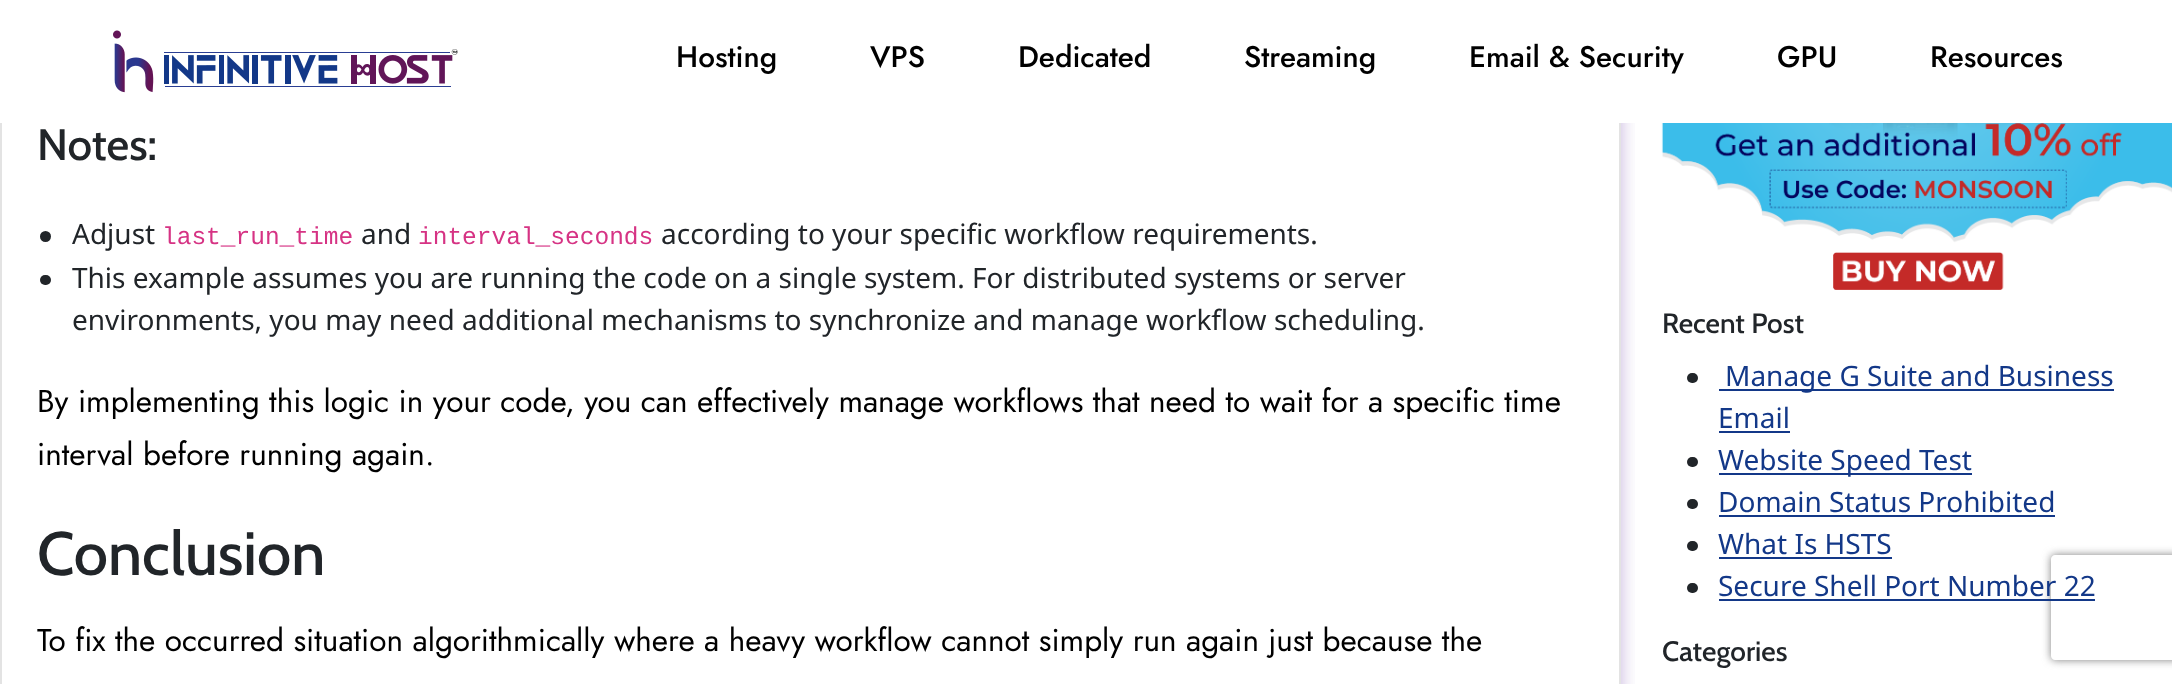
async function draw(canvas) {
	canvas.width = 2172;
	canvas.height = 684;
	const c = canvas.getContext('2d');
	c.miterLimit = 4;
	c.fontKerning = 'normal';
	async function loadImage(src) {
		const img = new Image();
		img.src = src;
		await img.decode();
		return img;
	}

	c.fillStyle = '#fff';
	c.fillRect(0, 0, 2172, 684);
	c.save();
	c.beginPath();
	c.rect(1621, 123, 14, 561);
	c.clip();
	c.fillStyle = '#4e169552';
	c.filter = 'blur(9px)';
	c.beginPath();
	c.roundRect(0, -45, 1621, 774, 18);
	c.fill();
	c.filter = 'none';
	c.restore();
	c.strokeStyle = '#e3e3e3';
	c.lineWidth = 2;
	c.strokeRect(1, -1, 1619, 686);
	c.fillRect(0, 0, 1637, 123);
	c.drawImage(await loadImage('img1.png'), 113, 30, 345, 63);
	c.font = '500 29.75px Jost';
	c.fillStyle = '#000';
	for (const [text, x, y] of [
		['Hosting', 676, 67],
		['VPS', 870, 67],
		['Dedicated', 1018, 67],
		['Streaming', 1244, 67],
		['Email & Security', 1469, 67],
		['GPU', 1777, 67],
		['Resources', 1930, 67],
	]) {
		c.fillText(text, x, y);
	}
	c.font = '500 44px Cabin';
	c.fillStyle = '#212529';
	c.fillText('Notes:', 37, 160);
	c.beginPath();
	c.arc(45.5, 236.5, 5.5, 0, 2 * Math.PI);
	c.fill();
	c.font = '28px Noto Sans';
	c.fillText('Adjust', 72, 244);
	c.font = '24.5px Liberation Mono';
	c.fillStyle = '#d63384';
	c.fillText('last_run_time', 162, 244);
	c.font = '28px Noto Sans';
	c.fillStyle = '#212529';
	c.fillText('and', 361, 244);
	c.font = '24.5px Liberation Mono';
	c.fillStyle = '#d63384';
	c.fillText('interval_seconds', 418, 244);
	c.font = '28px Noto Sans';
	c.fillStyle = '#212529';
	c.fillText('according to your specific workflow requirements.', 661, 244);
	c.beginPath();
	c.roundRect(40, 275, 11, 10, 5);
	c.fill();
	c.fillText('This example assumes you are running the code on a single system. For distributed systems or server', 72, 288);
	c.fillText('environments, you may need additional mechanisms to synchronize and manage workflow scheduling.', 72, 330);
	c.font = '31.5px Jost';
	c.fillStyle = '#000';
	c.fillText('By implementing this logic in your code, you can effectively manage workflows that need to wait for a specific time', 37, 412);
	c.fillText('interval before running again.', 37, 465);
	c.font = '500 61.25px Cabin';
	c.fillStyle = '#212529';
	c.fillText('Conclusion', 37, 575);
	c.font = '31.5px Jost';
	c.fillStyle = '#000';
	c.fillText('To fix the occurred situation algorithmically where a heavy workflow cannot simply run again just because the', 37, 651);
	c.drawImage(await loadImage('img2.png'), 1661, 123, 511, 167);
	c.font = '500 28px Cabin';
	c.fillStyle = '#212529';
	c.fillText('Recent Post', 1662, 333);
	c.beginPath();
	c.roundRect(1687, 373, 11, 10, 5);
	c.fill();
	c.fillStyle = '#133888';
	c.fillRect(1719, 389, 395, 2);
	c.font = '28px Noto Sans';
	c.fillText('Manage G Suite and Business', 1725, 386);
	c.fillText('Email', 1718, 428);
	c.fillRect(1719, 431, 71, 2);
	c.fillStyle = '#212529';
	c.beginPath();
	c.roundRect(1687, 457, 11, 10, 5);
	c.fill();
	c.fillStyle = '#133888';
	c.fillRect(1719, 473, 253, 2);
	c.fillText('Website Speed Test', 1718, 470);
	c.fillStyle = '#212529';
	c.beginPath();
	c.roundRect(1687, 499, 11, 10, 5);
	c.fill();
	c.fillStyle = '#133888';
	c.fillText('Domain Status Prohibited', 1718, 512);
	c.fillRect(1719, 515, 336, 2);
	c.fillStyle = '#212529';
	c.beginPath();
	c.roundRect(1687, 541, 11, 10, 5);
	c.fill();
	c.fillStyle = '#133888';
	c.fillText('What Is HSTS', 1718, 554);
	c.fillRect(1719, 557, 173, 2);
	c.fillStyle = '#212529';
	c.beginPath();
	c.roundRect(1687, 583, 11, 10, 5);
	c.fill();
	c.save();
	c.beginPath();
	c.moveTo(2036, 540);
	c.lineTo(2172, 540);
	c.lineTo(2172, 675);
	c.lineTo(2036, 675);
	c.closePath();
	c.moveTo(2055, 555);
	c.lineTo(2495, 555);
	c.bezierCurveTo(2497, 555, 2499, 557, 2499, 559);
	c.lineTo(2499, 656);
	c.bezierCurveTo(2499, 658, 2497, 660, 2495, 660);
	c.lineTo(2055, 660);
	c.bezierCurveTo(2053, 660, 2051, 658, 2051, 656);
	c.lineTo(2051, 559);
	c.bezierCurveTo(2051, 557, 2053, 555, 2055, 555);
	c.closePath();
	c.clip('evenodd');
	c.fillStyle = '#808080';
	c.filter = 'blur(4.5px)';
	c.beginPath();
	c.roundRect(2051, 555, 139, 105, 4);
	c.fill();
	c.filter = 'none';
	c.restore();
	c.fillStyle = '#133888';
	c.fillText('Secure Shell Port Number 22', 1718, 596);
	c.fillRect(1719, 599, 376, 2);
	c.font = '500 28px Cabin';
	c.fillStyle = '#212529';
	c.fillText('Categories', 1662, 661);
}

draw(document.querySelector('canvas'));
